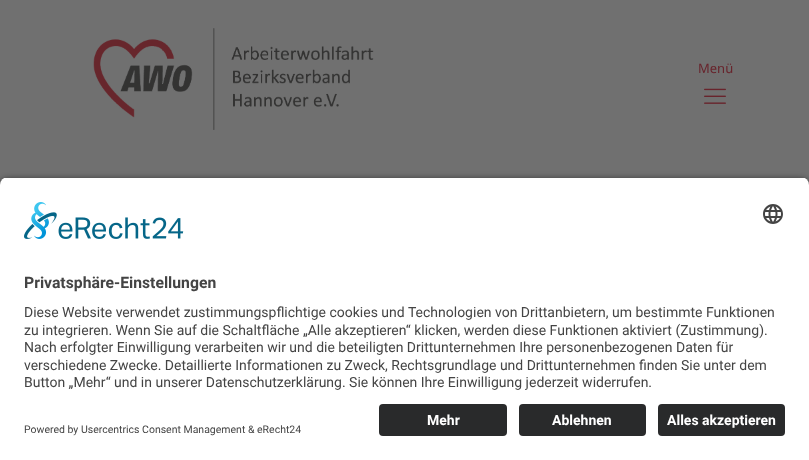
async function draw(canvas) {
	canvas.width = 809;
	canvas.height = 460;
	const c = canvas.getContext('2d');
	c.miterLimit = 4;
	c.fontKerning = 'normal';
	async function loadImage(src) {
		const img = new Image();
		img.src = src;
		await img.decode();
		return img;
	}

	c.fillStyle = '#707070';
	c.fillRect(0, 0, 809, 460);
	c.drawImage(await loadImage('img1.png'), 93, 28, 281, 102);
	c.font = '13px Noto Sans';
	c.fillStyle = '#68242c';
	c.fillText('Menü', 698, 73);
	c.drawImage(await loadImage('img2.png'), 704, 88, 22, 16);
	c.fillStyle = '#000000cc';
	c.filter = 'blur(3.5px)';
	c.beginPath();
	c.roundRect(0, 180, 809, 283, 8);
	c.fill();
	c.filter = 'none';
	c.save();
	c.beginPath();
	c.roundRect(0, 177, 809, 219, [8, 8, 0, 0]);
	c.clip();
	c.fillStyle = '#fff';
	c.fillRect(0, 178, 809, 218);
	c.restore();
	c.drawImage(await loadImage('img3.png'), 24, 202, 160, 37);
	c.drawImage(await loadImage('img4.png'), 763, 204, 20, 20);
	c.font = 'bold 15.75px Roboto';
	c.fillStyle = '#444';
	c.fillText('Privatsphäre-Einstellungen', 24, 288);
	c.font = '14px Roboto';
	for (const [text, x, y] of [
		['Diese Website verwendet zustimmungspflichtige cookies und Technologien von Drittanbietern, um bestimmte Funktionen', 24, 317],
		['zu integrieren. Wenn Sie auf die Schaltfläche „Alle akzeptieren“ klicken, werden diese Funktionen aktiviert (Zustimmung).', 24, 335],
		['Nach erfolgter Einwilligung verarbeiten wir und die beteiligten Drittunternehmen Ihre personenbezogenen Daten für', 24, 352],
		['verschiedene Zwecke. Detaillierte Informationen zu Zweck, Rechtsgrundlage und Drittunternehmen finden Sie unter dem', 24, 370],
		['Button „Mehr“ und in unserer Datenschutzerklärung. Sie können Ihre Einwilligung jederzeit widerrufen.', 24, 387],
	]) {
		c.fillText(text, x, y);
	}
	c.fillStyle = '#fff';
	c.fillRect(0, 396, 809, 64);
	c.fillStyle = '#292a2b';
	c.beginPath();
	c.roundRect(379, 404, 128, 32, 4);
	c.fill();
	c.font = 'bold 14px Roboto';
	c.fillStyle = '#fff';
	c.fillText('Mehr', 427, 425);
	c.fillStyle = '#292a2b';
	c.beginPath();
	c.roundRect(519, 404, 127, 32, 4);
	c.fill();
	c.fillStyle = '#fff';
	c.fillText('Ablehnen', 552, 425);
	c.fillStyle = '#292a2b';
	c.beginPath();
	c.roundRect(658, 404, 127, 32, 4);
	c.fill();
	c.fillStyle = '#fff';
	c.fillText('Alles akzeptieren', 667, 425);
	c.font = '10.5px Roboto';
	c.fillStyle = '#444';
	c.fillText('Powered by Usercentrics Consent Management & eRecht24', 24, 433);
}

draw(document.querySelector('canvas'));
